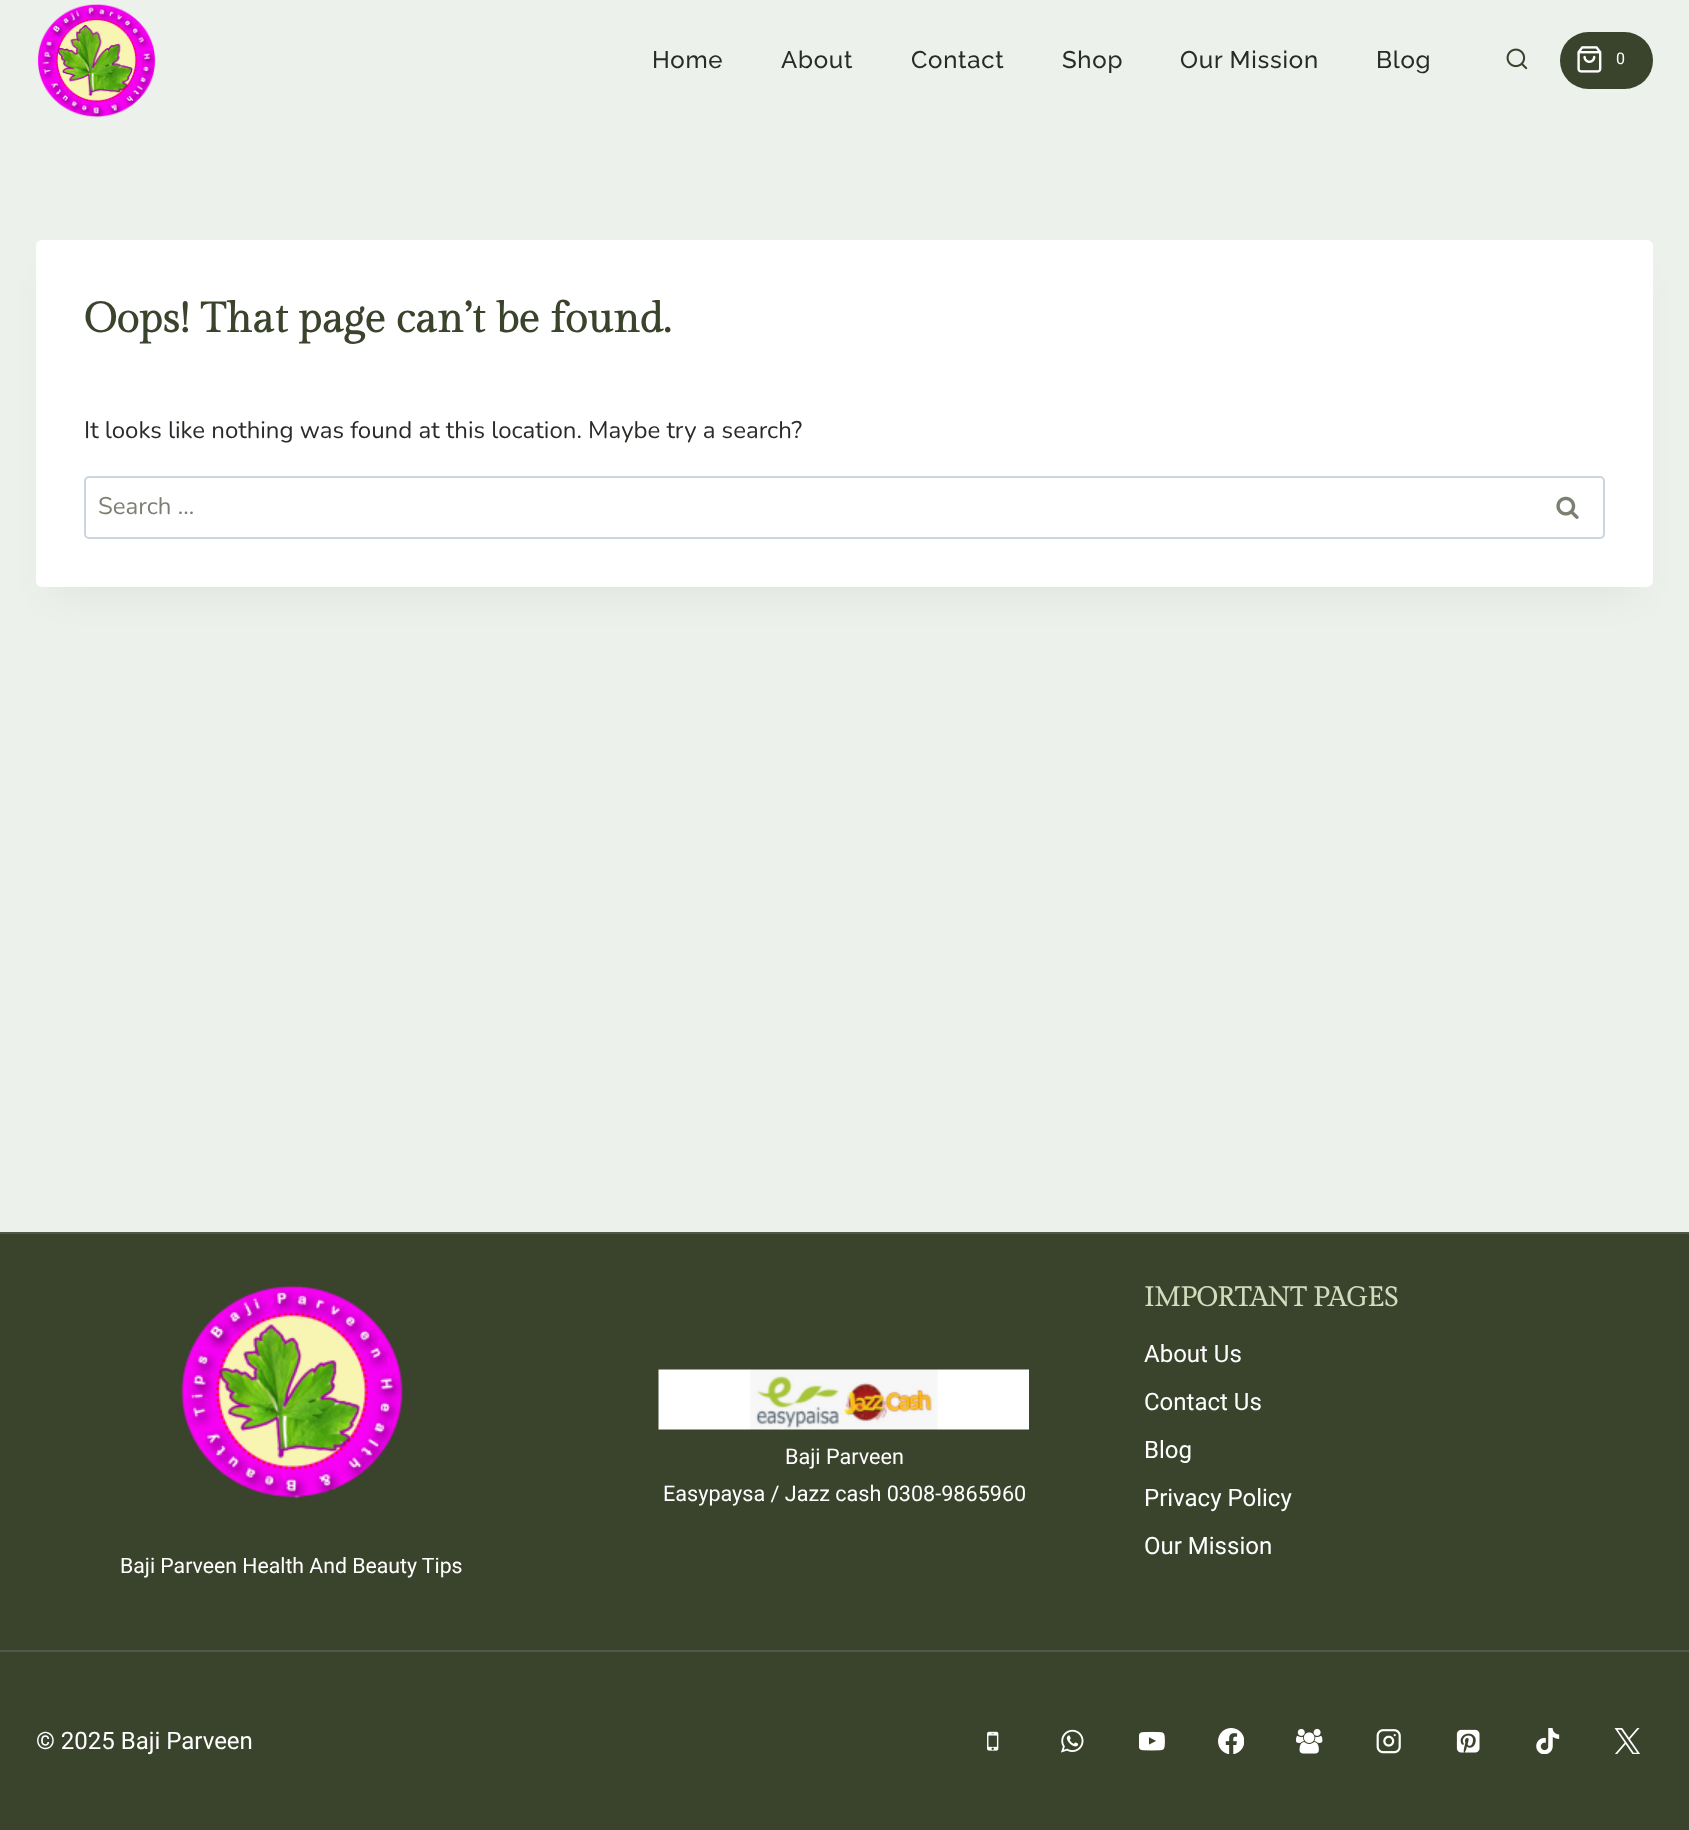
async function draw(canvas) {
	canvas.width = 1689;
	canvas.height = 1830;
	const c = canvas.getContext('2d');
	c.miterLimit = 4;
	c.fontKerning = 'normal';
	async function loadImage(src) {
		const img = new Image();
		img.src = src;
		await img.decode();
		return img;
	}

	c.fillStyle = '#edf1ec';
	c.fillRect(0, 0, 1689, 1830);
	c.drawImage(await loadImage('img1.png'), 38, 4, 118, 114);
	c.letterSpacing = '0.75px';
	c.font = '500 24px Raleway';
	c.fillStyle = '#292b26';
	for (const [text, x, y] of [
		['Home', 652, 68],
		['About', 781, 68],
		['Contact', 911, 68],
		['Shop', 1062, 68],
		['Our Mission', 1180, 68],
		['Blog', 1376, 68],
	]) {
		c.fillText(text, x, y);
	}
	c.drawImage(await loadImage('img2.png'), 1506, 48, 22, 22);
	c.fillStyle = '#3a432c';
	c.beginPath();
	c.roundRect(1560, 32, 93, 57, 28.5);
	c.fill();
	c.drawImage(await loadImage('img3.png'), 1577, 46, 25, 27);
	c.letterSpacing = '2px';
	c.font = '16px Roboto';
	c.fillStyle = '#fff';
	c.fillText('0', 1616, 64);
	c.fillStyle = '#0000000d';
	c.filter = 'blur(19px)';
	c.beginPath();
	c.rect(51, 278, 1587, 316);
	c.fill();
	c.filter = 'none';
	c.fillStyle = '#fff';
	c.beginPath();
	c.roundRect(36, 240, 1617, 347, 6);
	c.fill();
	c.letterSpacing = '0px';
	c.font = 'bold 42px Gilda Display';
	c.fillStyle = '#3a432c';
	c.fillText('Oops! That page can’t be found.', 84, 332);
	c.font = '24px Nunito';
	c.fillStyle = '#292b26';
	c.fillText('It looks like nothing was found at this location. Maybe try a search?', 84, 438);
	c.beginPath();
	c.roundRect(85, 477, 1519, 61, 4);
	c.strokeStyle = '#cbd5e0';
	c.lineWidth = 2;
	c.stroke();
	c.fillStyle = '#7b8172';
	c.fillText('Search …', 98, 514);
	c.drawImage(await loadImage('img4.png'), 1556, 496, 23, 23);
	c.fillStyle = '#3a432c';
	c.fillRect(0, 1234, 1689, 416);
	c.fillStyle = '#52564c';
	c.fillRect(0, 1232, 1689, 2);
	c.drawImage(await loadImage('img5.png'), 658, 1369, 371, 61);
	c.font = '21.6px Roboto';
	c.fillStyle = '#fff';
	c.fillText('Baji Parveen', 785, 1464);
	c.fillText('Easypaysa / Jazz cash 0308-9865960', 663, 1501);
	c.font = 'bold 27px Gilda Display';
	c.fillStyle = '#d0dcbb';
	c.fillText('IMPORTANT PAGES', 1144, 1306);
	c.font = '24px Roboto';
	c.fillStyle = '#fff';
	for (const [text, x, y] of [
		['About Us', 1144, 1362],
		['Contact Us', 1144, 1410],
		['Blog', 1144, 1458],
		['Privacy Policy', 1144, 1506],
		['Our Mission', 1144, 1554],
	]) {
		c.fillText(text, x, y);
	}
	c.drawImage(await loadImage('img6.png'), 181, 1285, 222, 214);
	c.font = '21.25px Roboto';
	c.fillText('Baji Parveen Health And Beauty Tips', 120, 1573);
	c.fillStyle = '#3a432c';
	c.fillRect(0, 1652, 1689, 178);
	c.fillStyle = '#52564c';
	c.fillRect(0, 1650, 1689, 2);
	c.font = '24px Roboto';
	c.fillStyle = '#fff';
	c.fillText('© 2025 Baji Parveen', 36, 1749);
	c.drawImage(await loadImage('img7.png'), 987, 1731, 12, 20);
	c.drawImage(await loadImage('img8.png'), 1061, 1729, 23, 24);
	c.drawImage(await loadImage('img9.png'), 1139, 1731, 26, 20);
	c.drawImage(await loadImage('img10.png'), 1218, 1728, 26, 26);
	c.drawImage(await loadImage('img11.png'), 1296, 1728, 27, 26);
	c.drawImage(await loadImage('img12.png'), 1376, 1729, 25, 25);
	c.drawImage(await loadImage('img13.png'), 1456, 1729, 24, 24);
	c.drawImage(await loadImage('img14.png'), 1536, 1728, 24, 26);
	c.drawImage(await loadImage('img15.png'), 1614, 1728, 26, 26);
}

draw(document.querySelector('canvas'));
